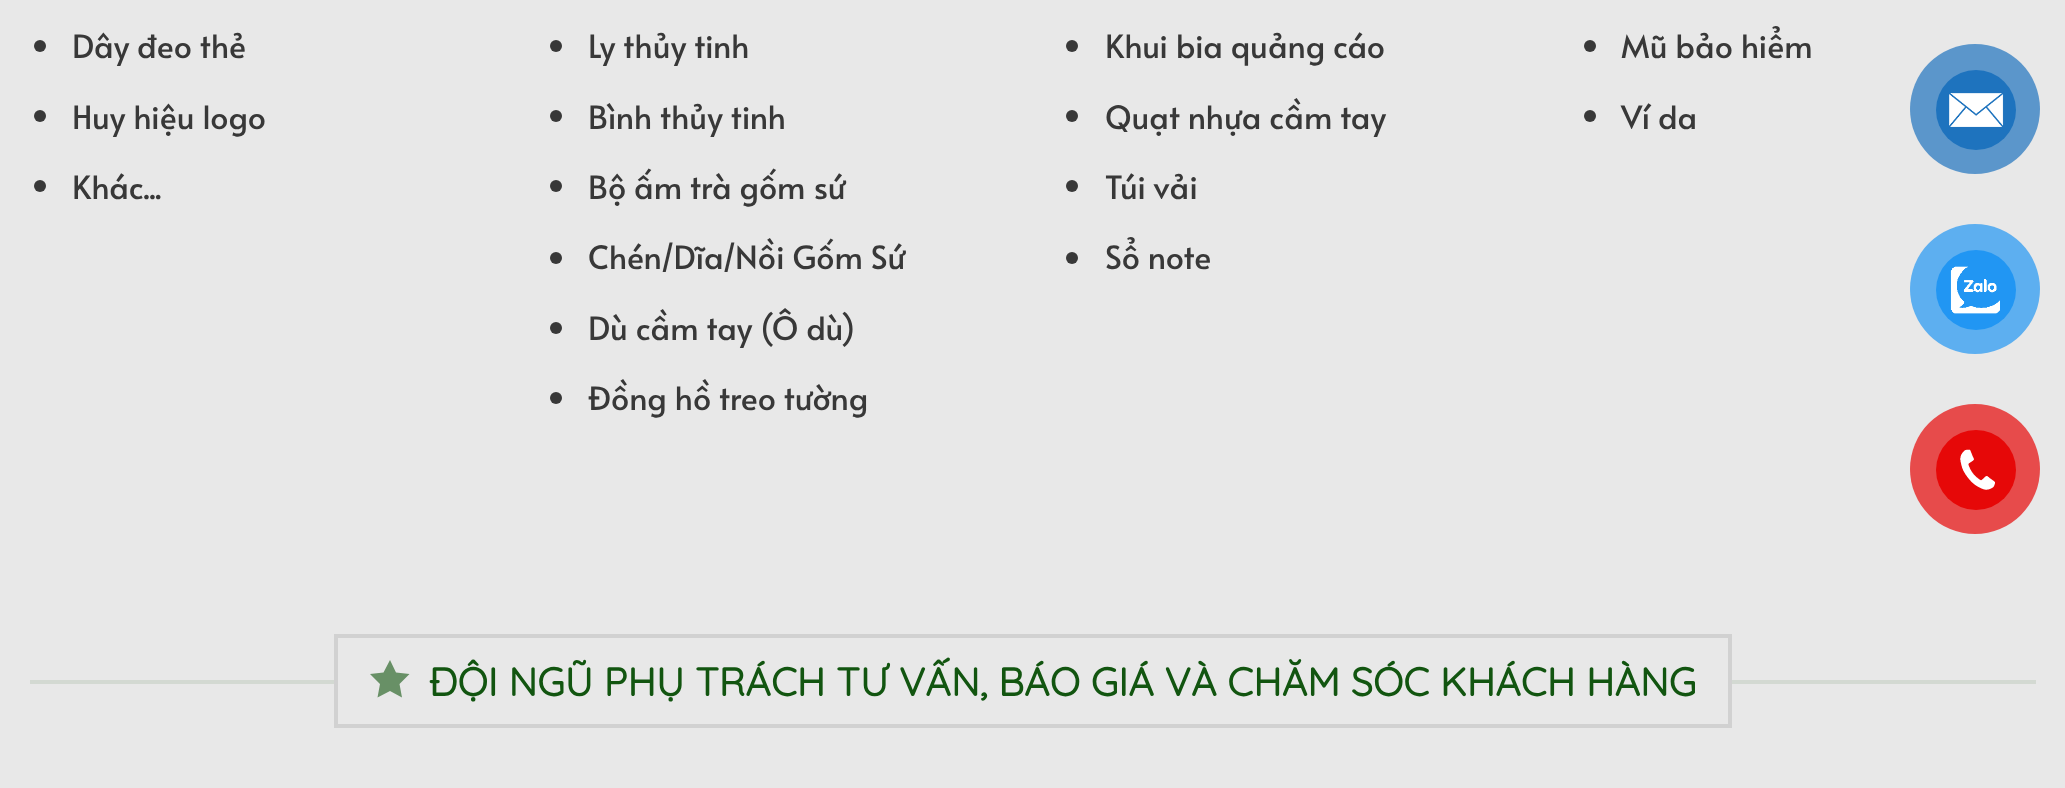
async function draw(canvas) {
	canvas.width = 2065;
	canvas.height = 788;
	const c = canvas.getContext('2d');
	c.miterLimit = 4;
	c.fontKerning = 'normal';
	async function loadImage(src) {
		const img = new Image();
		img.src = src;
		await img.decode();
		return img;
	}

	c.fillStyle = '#e8e8e8';
	c.fillRect(0, 0, 2065, 788);
	c.fillStyle = '#383838';
	c.beginPath();
	c.arc(40, 46, 6, 0, 2 * Math.PI);
	c.fill();
	c.font = '32px Alata';
	c.fillText('Dây đeo thẻ', 72, 58);
	c.beginPath();
	c.arc(40, 116, 6, 0, 2 * Math.PI);
	c.fill();
	c.fillText('Huy hiệu logo', 72, 129);
	c.beginPath();
	c.arc(40, 186, 6, 0, 2 * Math.PI);
	c.fill();
	c.fillText('Khác...', 72, 199);
	c.beginPath();
	c.arc(556, 46, 6, 0, 2 * Math.PI);
	c.fill();
	c.fillText('Ly thủy tinh', 588, 58);
	c.beginPath();
	c.arc(556, 116, 6, 0, 2 * Math.PI);
	c.fill();
	c.fillText('Bình thủy tinh', 588, 129);
	c.beginPath();
	c.arc(556, 186, 6, 0, 2 * Math.PI);
	c.fill();
	c.fillText('Bộ ấm trà gốm sứ', 588, 199);
	c.beginPath();
	c.arc(556, 258, 6, 0, 2 * Math.PI);
	c.fill();
	c.fillText('Chén/Dĩa/Nồi Gốm Sứ', 588, 269);
	c.beginPath();
	c.arc(556, 328, 6, 0, 2 * Math.PI);
	c.fill();
	c.fillText('Dù cầm tay (Ô dù)', 588, 340);
	c.beginPath();
	c.arc(556, 398, 6, 0, 2 * Math.PI);
	c.fill();
	c.fillText('Đồng hồ treo tường', 588, 410);
	c.beginPath();
	c.arc(1072, 46, 6, 0, 2 * Math.PI);
	c.fill();
	c.fillText('Khui bia quảng cáo', 1105, 58);
	c.beginPath();
	c.arc(1072, 116, 6, 0, 2 * Math.PI);
	c.fill();
	c.fillText('Quạt nhựa cầm tay', 1105, 129);
	c.beginPath();
	c.arc(1072, 186, 6, 0, 2 * Math.PI);
	c.fill();
	c.fillText('Túi vải', 1105, 199);
	c.beginPath();
	c.arc(1072, 258, 6, 0, 2 * Math.PI);
	c.fill();
	c.fillText('Sổ note', 1105, 269);
	c.beginPath();
	c.arc(1590, 46, 6, 0, 2 * Math.PI);
	c.fill();
	c.fillText('Mũ bảo hiểm', 1621, 58);
	c.beginPath();
	c.arc(1590, 116, 6, 0, 2 * Math.PI);
	c.fill();
	c.fillText('Ví da', 1621, 129);
	c.fillStyle = '#d3d9d2';
	c.fillRect(30, 680, 304, 4);
	c.strokeStyle = '#d1d1d1';
	c.lineWidth = 4;
	c.strokeRect(336, 636, 1394, 90);
	c.fillStyle = '#689066';
	c.beginPath();
	c.moveTo(409.5, 674);
	c.lineTo(396, 672.5);
	c.lineTo(390, 660);
	c.lineTo(383.5, 672.5);
	c.lineTo(370, 674);
	c.lineTo(380, 684);
	c.lineTo(377.5, 697.5);
	c.lineTo(390, 691);
	c.lineTo(402, 697.5);
	c.lineTo(399.5, 684);
	c.closePath();
	c.fill();
	c.font = 'bold 39.6px Quicksand';
	c.fillStyle = '#125510';
	c.fillText('ĐỘI NGŨ PHỤ TRÁCH TƯ VẤN, BÁO GIÁ VÀ CHĂM SÓC KHÁCH HÀNG', 429, 696);
	c.fillStyle = '#d3d9d2';
	c.fillRect(1732, 680, 304, 4);
	c.fillStyle = '#5b96cb';
	c.beginPath();
	c.arc(1975, 109, 65, 0, 2 * Math.PI);
	c.fill();
	c.fillStyle = '#1e73be';
	c.beginPath();
	c.arc(1976, 110, 40, 0, 2 * Math.PI);
	c.fill();
	c.drawImage(await loadImage('img1.png'), 1949, 93, 55, 34);
	c.fillStyle = '#5daff0';
	c.beginPath();
	c.arc(1975, 289, 65, 0, 2 * Math.PI);
	c.fill();
	c.fillStyle = '#2196f3';
	c.beginPath();
	c.arc(1976, 290, 40, 0, 2 * Math.PI);
	c.fill();
	c.drawImage(await loadImage('img2.png'), 1950, 266, 50, 48);
	c.fillStyle = '#e74b4b';
	c.beginPath();
	c.arc(1975, 469, 65, 0, 2 * Math.PI);
	c.fill();
	c.fillStyle = '#e60808';
	c.beginPath();
	c.arc(1976, 470, 40, 0, 2 * Math.PI);
	c.fill();
	c.drawImage(await loadImage('img3.png'), 1960, 449, 35, 41);
}

draw(document.querySelector('canvas'));
